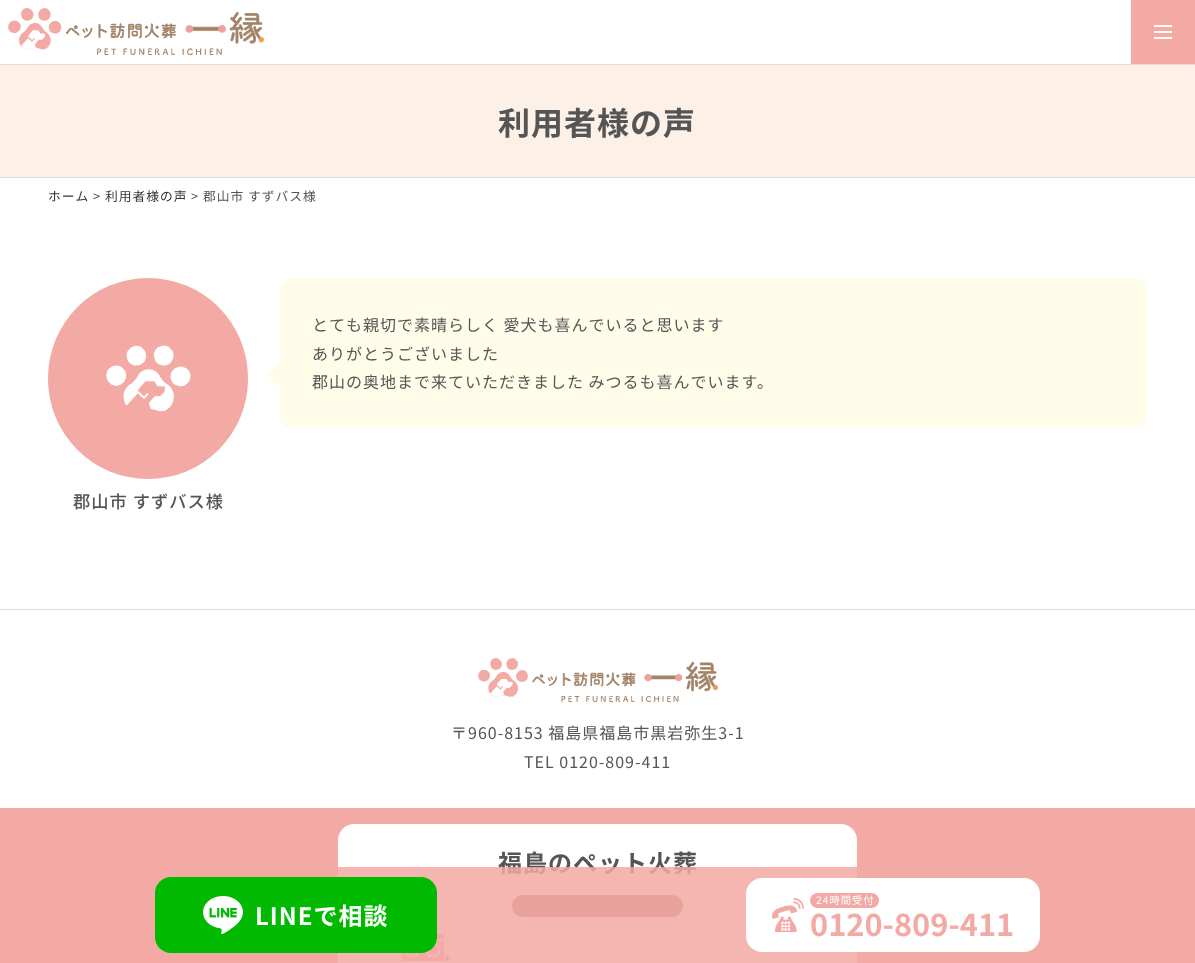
async function draw(canvas) {
	canvas.width = 1195;
	canvas.height = 963;
	const c = canvas.getContext('2d');
	c.miterLimit = 4;
	c.fontKerning = 'normal';
	async function loadImage(src) {
		const img = new Image();
		img.src = src;
		await img.decode();
		return img;
	}

	c.fillStyle = '#fff';
	c.fillRect(0, 0, 1195, 963);
	c.drawImage(await loadImage('img1.png'), 8, 8, 256, 47);
	for (const [x, y, w, h, color] of [
		[1131, 0, 64, 64, '#f3a9a4'],
		[1154, 31, 18, 2, '#fff'],
		[1154, 25, 18, 2, '#fff'],
		[1154, 37, 18, 2, '#fff'],
		[0, 65, 1195, 112, '#fdf0e7'],
		[0, 64, 1195, 1, '#ddd'],
		[0, 177, 1195, 1, '#ddd'],
	]) {
		c.fillStyle = color;
		c.fillRect(x, y, w, h);
	}
	c.letterSpacing = '1px';
	c.font = 'bold 32px Noto Sans JP';
	c.fillStyle = '#555';
	c.fillText('利用者様の声', 498, 135);
	c.font = '12.75px Noto Sans JP';
	c.fillStyle = '#333';
	c.fillText('ホーム', 48, 201);
	c.fillStyle = '#555';
	c.fillText('>', 93, 201);
	c.fillStyle = '#333';
	c.fillText('利用者様の声', 105, 201);
	c.fillStyle = '#555';
	c.fillText('> 郡山市 すずバス様', 191, 201);
	c.fillStyle = '#fffde9';
	c.beginPath();
	c.roundRect(280, 278, 867, 150, 12);
	c.fill();
	c.beginPath();
	c.moveTo(282, 358);
	c.lineTo(282, 390);
	c.lineTo(266, 374);
	c.closePath();
	c.fill();
	c.font = '16px Noto Sans JP';
	c.fillStyle = '#555';
	for (const [text, x, y] of [
		['とても親切で素晴らしく 愛犬も喜んでいると思います', 312, 331],
		['ありがとうございました', 312, 360],
		['郡山の奥地まで来ていただきました みつるも喜んでいます。', 312, 388],
	]) {
		c.fillText(text, x, y);
	}
	c.fillStyle = '#f3a9a4';
	c.beginPath();
	c.roundRect(48, 278, 200, 201, 100);
	c.fill();
	c.drawImage(await loadImage('img2.png'), 106, 345, 85, 67);
	c.font = '500 17.25px Noto Sans JP';
	c.fillStyle = '#555';
	c.fillText('郡山市 すずバス様', 73, 508);
	c.fillStyle = '#ddd';
	c.fillRect(0, 609, 1195, 1);
	c.drawImage(await loadImage('img3.png'), 478, 658, 240, 44);
	c.font = '16px Noto Sans JP';
	c.fillStyle = '#555';
	c.fillText('〒960-8153 福島県福島市黒岩弥生3-1', 451, 739);
	c.fillText('TEL 0120-809-411', 524, 768);
	c.fillStyle = '#f3a9a4';
	c.fillRect(0, 808, 1195, 155);
	c.fillStyle = '#fff';
	c.beginPath();
	c.roundRect(338, 824, 519, 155, 16);
	c.fill();
	c.font = 'bold 24px Noto Sans JP';
	c.fillStyle = '#555';
	c.fillText('福島のペット火葬', 498, 872);
	c.fillStyle = '#a28367';
	c.beginPath();
	c.roundRect(512, 895, 171, 22, 11);
	c.fill();
	c.drawImage(await loadImage('img4.png'), 402, 934, 48, 28);
	c.fillStyle = '#f3a9a4d9';
	c.fillRect(338, 867, 519, 96);
	c.fillStyle = '#00b900';
	c.beginPath();
	c.roundRect(155, 877, 282, 76, 16);
	c.fill();
	c.drawImage(await loadImage('img5.png'), 203, 896, 40, 38);
	c.fillStyle = '#fff';
	c.fillText('LINEで相談', 255, 925);
	c.beginPath();
	c.roundRect(746, 878, 294, 74, 16);
	c.fill();
	c.drawImage(await loadImage('img6.png'), 772, 898, 32, 34);
	c.fillStyle = '#f3a9a4';
	c.beginPath();
	c.roundRect(810, 893, 69, 15, 7.5);
	c.fill();
	c.font = '10.25px Noto Sans JP';
	c.fillStyle = '#fff';
	c.fillText('24時間受付', 816, 904);
	c.letterSpacing = '0px';
	c.font = 'bold 30.75px Noto Sans JP';
	c.fillStyle = '#f3a9a4';
	c.fillText('0120-809-411', 810, 936);
}

draw(document.querySelector('canvas'));
